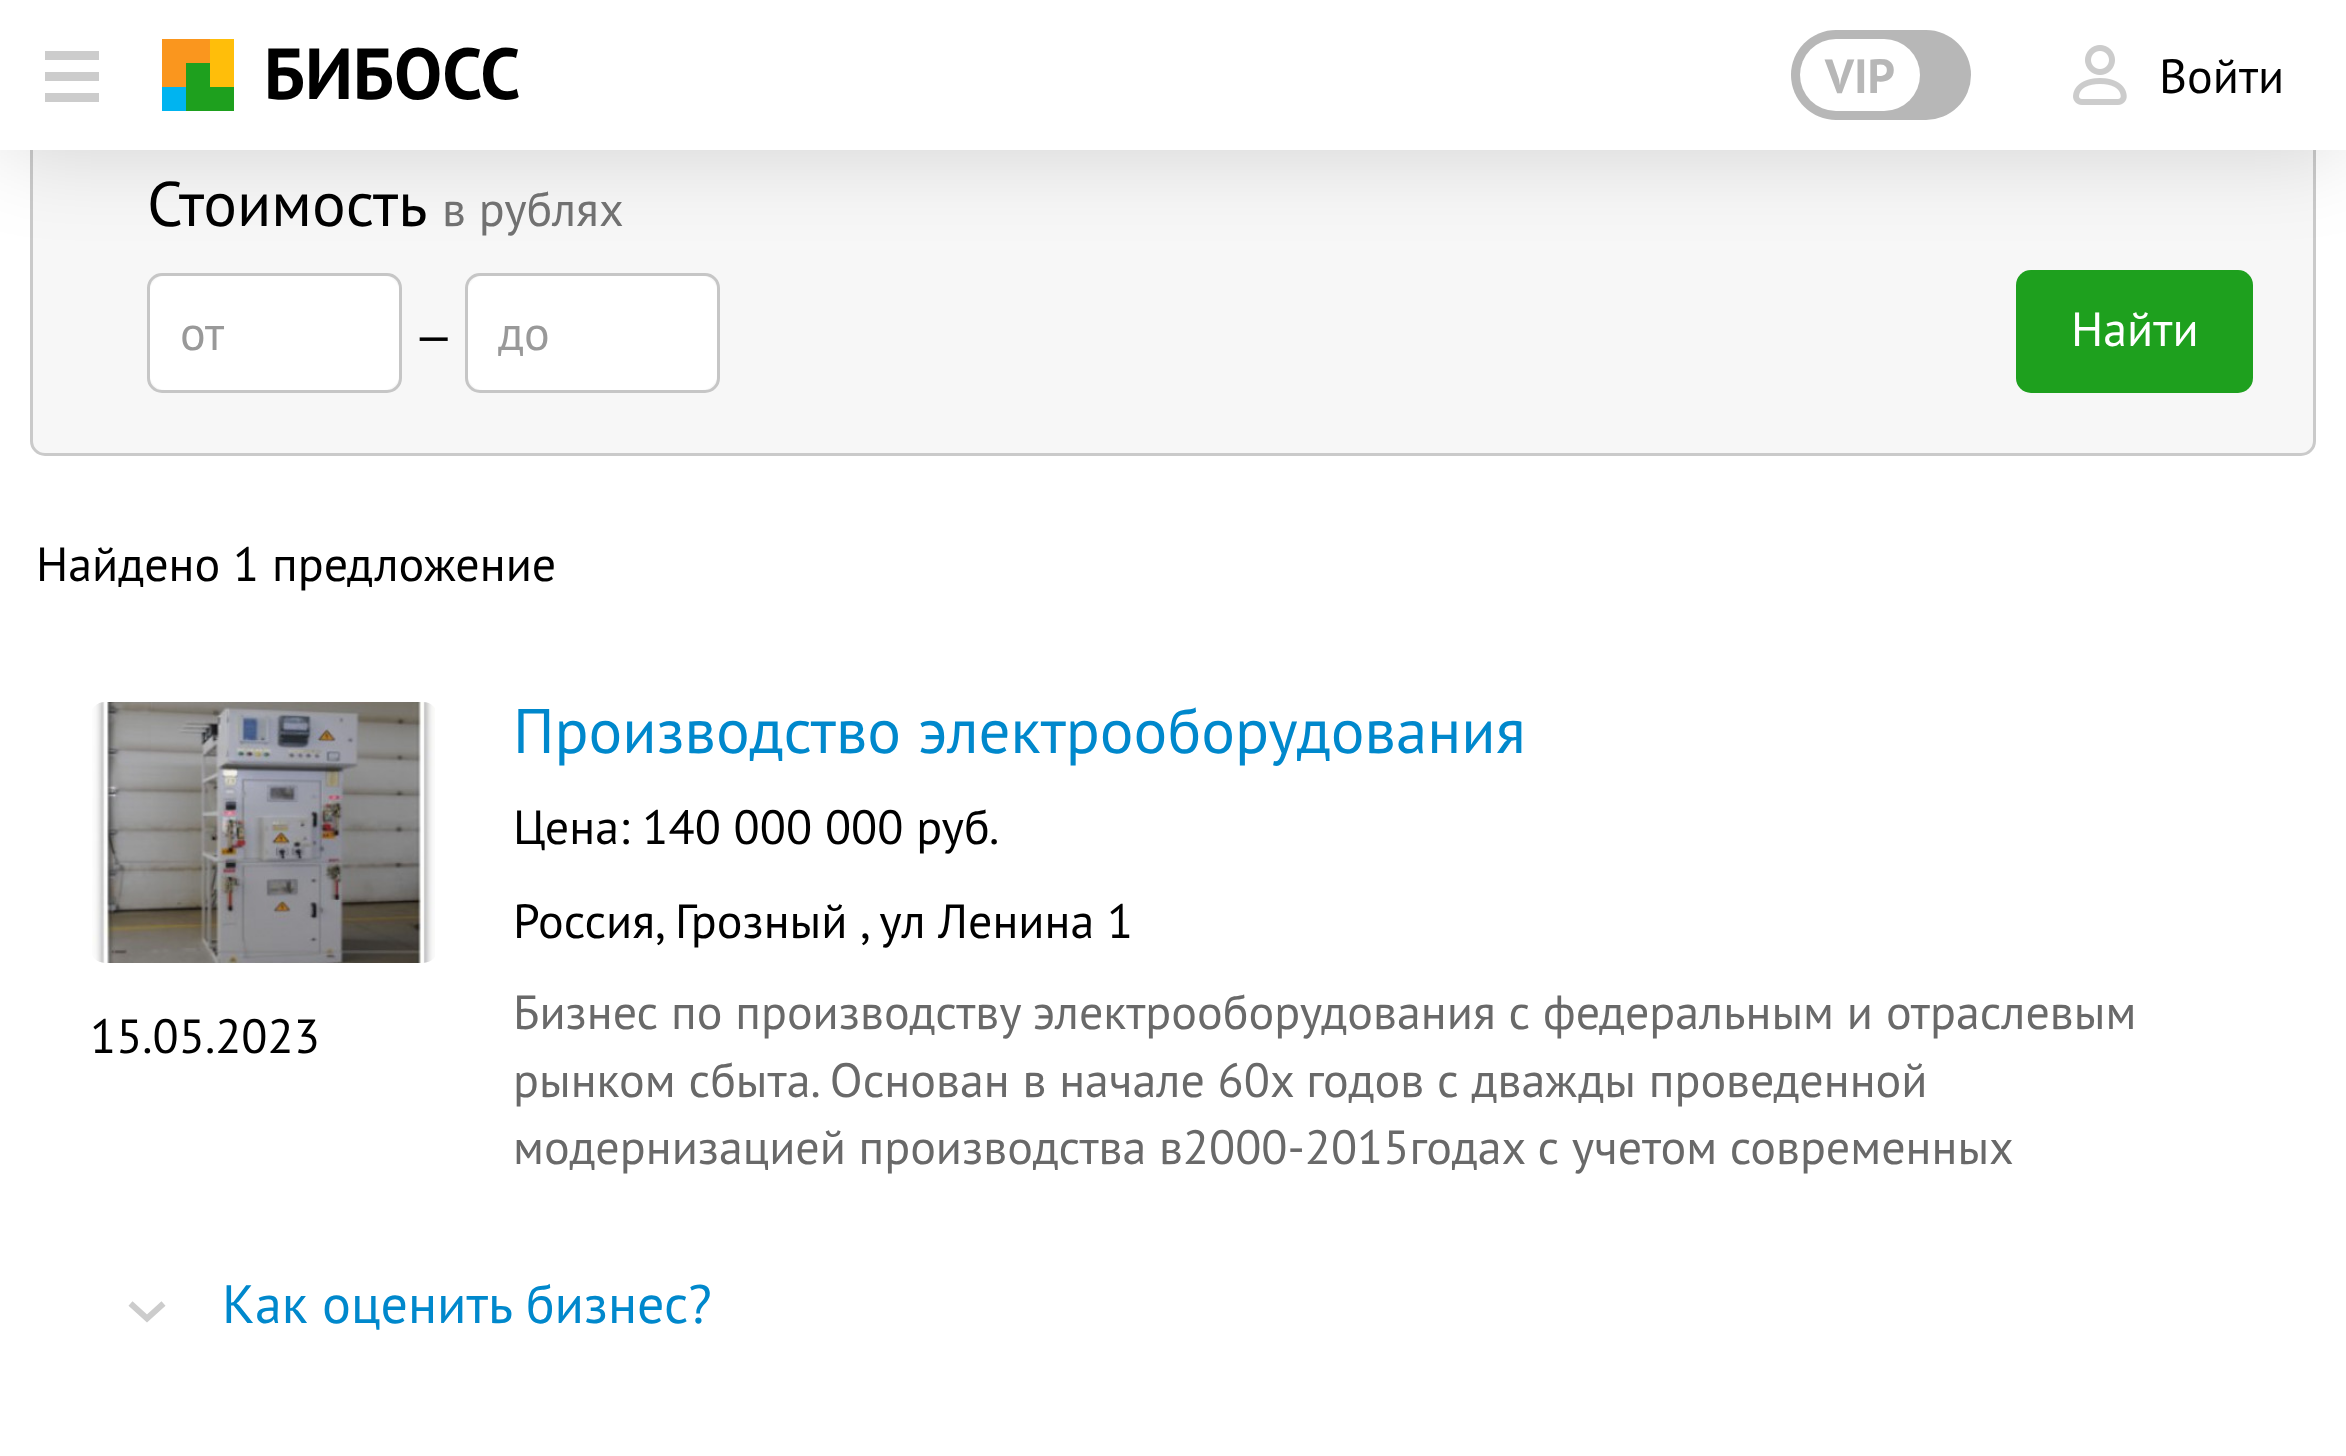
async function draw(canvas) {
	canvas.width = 2346;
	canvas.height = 1456;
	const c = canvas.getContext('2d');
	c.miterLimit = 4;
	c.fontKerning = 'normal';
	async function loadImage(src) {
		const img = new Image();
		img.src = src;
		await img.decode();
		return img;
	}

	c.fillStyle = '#fff';
	c.fillRect(0, 0, 2346, 1456);
	c.fillStyle = '#f7f7f7';
	c.beginPath();
	c.roundRect(31.5, -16.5, 2283, 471, 13.5);
	c.fill();
	c.strokeStyle = '#cacaca';
	c.lineWidth = 3;
	c.stroke();
	c.beginPath();
	c.roundRect(148.5, 274.5, 252, 117, 13.5);
	c.strokeStyle = '#c6c6c6';
	c.stroke();
	c.fillStyle = '#fff';
	c.beginPath();
	c.roundRect(150, 276, 249, 114, 15);
	c.fill();
	c.beginPath();
	c.roundRect(466.5, 274.5, 252, 117, 13.5);
	c.stroke();
	c.beginPath();
	c.roundRect(468, 276, 249, 114, 15);
	c.fill();
	c.fillStyle = '#1ea01e';
	c.beginPath();
	c.roundRect(2016, 270, 237, 123, 15);
	c.fill();
	c.fillStyle = '#00000026';
	c.filter = 'blur(45px)';
	c.beginPath();
	c.rect(0, 0, 2346, 150);
	c.fill();
	c.filter = 'none';
	for (const [x, y, w, h, color] of [
		[0, 0, 2346, 150, '#fff'],
		[45, 72, 54, 9, '#ccc'],
		[45, 51, 54, 9, '#ccc'],
		[45, 93, 54, 9, '#ccc'],
	]) {
		c.fillStyle = color;
		c.fillRect(x, y, w, h);
	}
	c.fillStyle = '#fa961e';
	c.beginPath();
	c.moveTo(186, 63);
	c.lineTo(186, 87);
	c.lineTo(162, 87);
	c.lineTo(162, 39);
	c.lineTo(210, 39);
	c.lineTo(210, 63);
	c.closePath();
	c.fill('evenodd');
	c.fillStyle = '#00b4f0';
	c.fillRect(162, 87, 24, 24);
	c.fillStyle = '#1ea01e';
	c.beginPath();
	c.moveTo(210, 111);
	c.lineTo(186, 111);
	c.lineTo(186, 63);
	c.lineTo(210, 63);
	c.lineTo(210, 87);
	c.lineTo(234, 87);
	c.lineTo(234, 111);
	c.closePath();
	c.fill('evenodd');
	c.fillStyle = '#ffbe0a';
	c.beginPath();
	c.moveTo(234, 63);
	c.lineTo(234, 87);
	c.lineTo(210, 87);
	c.lineTo(210, 39);
	c.lineTo(234, 39);
	c.closePath();
	c.fill('evenodd');
	c.font = 'bold 72px PT Sans';
	c.fillStyle = '#000';
	c.fillText('БИБОСС', 264, 99);
	c.fillStyle = '#b7b7b7';
	c.beginPath();
	c.roundRect(1791, 30, 180, 90, 45);
	c.fill();
	c.fillStyle = '#fff';
	c.beginPath();
	c.roundRect(1800, 39, 120, 72, 36);
	c.fill();
	c.font = 'bold 48px PT Sans';
	c.fillStyle = '#b7b7b7';
	c.fillText('VIP', 1825, 93);
	c.drawImage(await loadImage('img1.png'), 2073, 45, 54, 60);
	c.font = '48px PT Sans';
	c.fillStyle = '#000';
	c.fillText('Войти', 2159, 93);
	c.font = '63px PT Sans';
	c.fillText('Стоимость', 147, 226);
	c.font = '48px PT Sans';
	c.fillStyle = '#717171';
	c.fillText('в рублях', 442, 226);
	c.fillStyle = '#999';
	c.fillText('от', 180, 350);
	c.fillStyle = '#000';
	c.fillText('—', 414, 353);
	c.fillStyle = '#999';
	c.fillText('до', 498, 350);
	c.fillStyle = '#fff';
	c.fillText('Найти', 2071, 346);
	c.fillStyle = '#000';
	c.fillText('Найдено 1 предложение', 36, 581);
	c.drawImage(await loadImage('img2.png'), 92, 702, 343, 261);
	c.fillText('15.05.2023', 90, 1053);
	c.font = '63px PT Sans';
	c.fillStyle = '#08c';
	c.fillText('Производство электрооборудования', 513, 753);
	c.font = '48px PT Sans';
	c.fillStyle = '#000';
	for (const [text, x, y] of [
		['Цена: 140 000 000 руб.', 513, 844],
		['Россия, Грозный', 513, 938],
		[', yл Ленина 1', 860, 938],
	]) {
		c.fillText(text, x, y);
	}
	c.fillStyle = '#696969';
	c.fillText('Бизнес по производству электрооборудования с федеральным и отраслевым', 513, 1029);
	c.fillText('рынком сбыта. Основан в начале 60х годов с дважды проведенной', 513, 1097);
	c.wordSpacing = '-0.25px';
	c.fillText('модернизацией производства в2000-2015годах с учетом современных', 513, 1164);
	c.beginPath();
	c.moveTo(130.5, 1303.5);
	c.lineTo(147, 1318.5);
	c.lineTo(163.5, 1303.5);
	c.strokeStyle = '#ccc';
	c.lineWidth = 6;
	c.stroke();
	c.wordSpacing = '0px';
	c.font = '54px PT Sans';
	c.fillStyle = '#08c';
	c.fillText('Как оценить бизнес?', 222, 1323);
}

draw(document.querySelector('canvas'));
